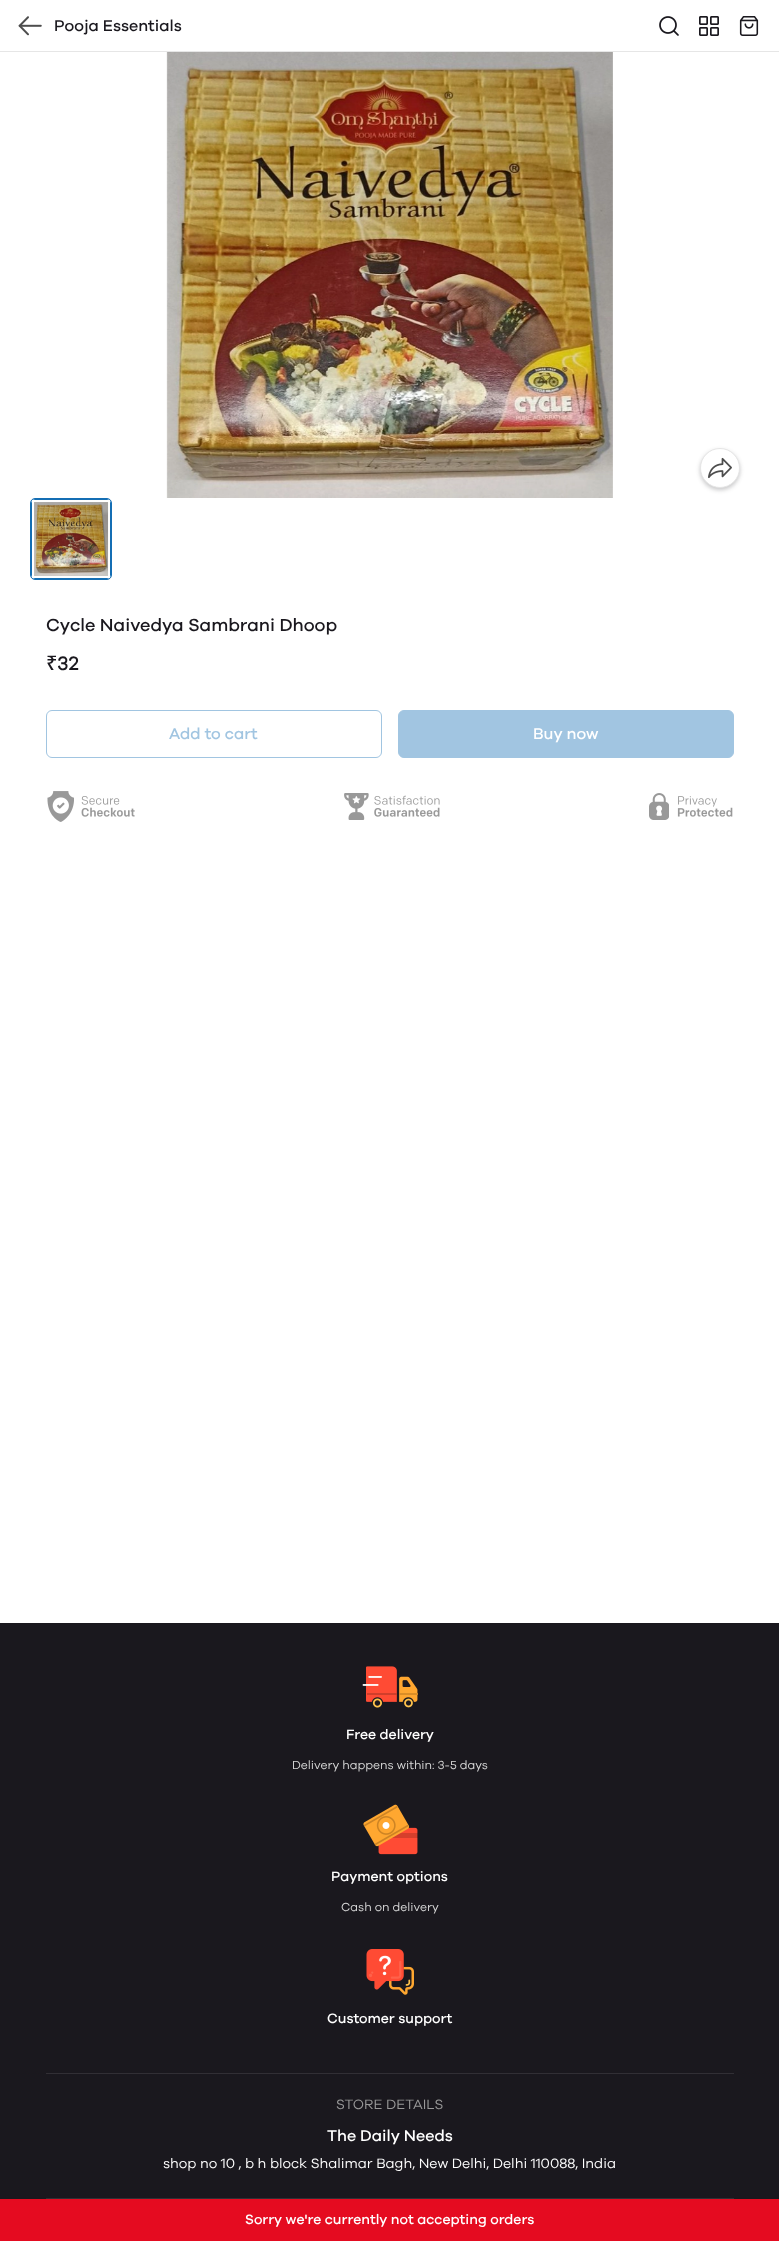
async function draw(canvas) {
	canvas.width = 779;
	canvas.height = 2241;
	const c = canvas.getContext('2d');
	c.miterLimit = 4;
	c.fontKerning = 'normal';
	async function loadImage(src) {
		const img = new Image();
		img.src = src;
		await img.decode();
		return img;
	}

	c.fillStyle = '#fff';
	c.fillRect(0, 0, 779, 2241);
	c.fillStyle = '#e6e6e6';
	c.fillRect(0, 51, 779, 1);
	c.drawImage(await loadImage('img1.png'), 18, 16, 24, 20);
	c.font = '500 16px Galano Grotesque';
	c.fillStyle = '#1a181e';
	c.fillText('Pooja Essentials', 54, 31);
	c.drawImage(await loadImage('img2.png'), 659, 16, 20, 20);
	c.drawImage(await loadImage('img3.png'), 699, 16, 20, 20);
	c.drawImage(await loadImage('img4.png'), 739, 16, 20, 20);
	c.drawImage(await loadImage('img5.png'), 166, 52, 447, 446);
	c.fillStyle = '#1a181e3d';
	c.filter = 'blur(2px)';
	c.beginPath();
	c.roundRect(700, 450, 40, 40, 20);
	c.fill();
	c.filter = 'none';
	c.fillStyle = '#fff';
	c.beginPath();
	c.arc(720, 468, 19.5, 0, 2 * Math.PI);
	c.fill();
	c.strokeStyle = '#e6e6e6';
	c.stroke();
	c.drawImage(await loadImage('img6.png'), 708, 457, 24, 22);
	c.beginPath();
	c.roundRect(30.5, 498.5, 81, 81, 4.5);
	c.strokeStyle = '#146eb4';
	c.stroke();
	c.fillStyle = '#146eb4';
	c.beginPath();
	c.moveTo(31, 503);
	c.lineTo(31, 575);
	c.lineTo(32, 578);
	c.lineTo(32, 500);
	c.closePath();
	c.moveTo(35, 499);
	c.lineTo(32, 500);
	c.lineTo(110, 500);
	c.lineTo(107, 499);
	c.closePath();
	c.moveTo(111, 503);
	c.lineTo(110, 500);
	c.lineTo(110, 578);
	c.lineTo(111, 575);
	c.closePath();
	c.moveTo(107, 579);
	c.lineTo(110, 578);
	c.lineTo(32, 578);
	c.lineTo(35, 579);
	c.closePath();
	c.fill('evenodd');
	c.drawImage(await loadImage('img7.png'), 34, 502, 75, 74);
	c.font = '500 18px Galano Grotesque';
	c.fillStyle = '#1a181e';
	c.fillText('Cycle Naivedya Sambrani Dhoop', 46, 631);
	c.font = '500 20px Noto Sans';
	c.fillText('₹', 46, 670);
	c.font = '500 20px Galano Grotesque';
	c.fillText('32', 57, 670);
	c.beginPath();
	c.roundRect(46.5, 710.5, 335, 47, 5.5);
	c.strokeStyle = '#a1c5e1';
	c.stroke();
	c.font = '500 16px Galano Grotesque';
	c.fillStyle = '#a1c5e1';
	c.fillText('Add to cart', 169, 739);
	c.beginPath();
	c.roundRect(398.5, 710.5, 335, 47, 5.5);
	c.fill();
	c.stroke();
	c.fillStyle = '#fff';
	c.fillText('Buy now', 533, 739);
	c.drawImage(await loadImage('img8.png'), 47, 791, 88, 31);
	c.drawImage(await loadImage('img9.png'), 344, 793, 96, 27);
	c.drawImage(await loadImage('img10.png'), 649, 793, 84, 27);
	c.fillStyle = '#1a181e';
	c.fillRect(0, 1623, 779, 576);
	c.drawImage(await loadImage('img11.png'), 362, 1666, 56, 42);
	c.font = '500 14px Galano Grotesque';
	c.fillStyle = '#fff';
	c.fillText('Free delivery', 346, 1739);
	c.font = '12px Galano Grotesque';
	c.fillStyle = '#d9d9d9';
	c.fillText('Delivery happens within: 3-5 days', 292, 1769);
	c.drawImage(await loadImage('img12.png'), 363, 1804, 55, 51);
	c.font = '500 14px Galano Grotesque';
	c.fillStyle = '#fff';
	c.fillText('Payment options', 331, 1881);
	c.font = '12px Galano Grotesque';
	c.fillStyle = '#d9d9d9';
	c.fillText('Cash on delivery', 341, 1911);
	c.drawImage(await loadImage('img13.png'), 366, 1949, 48, 46);
	c.font = '500 14px Galano Grotesque';
	c.fillStyle = '#fff';
	c.fillText('Customer support', 327, 2023);
	c.fillStyle = '#312f35';
	c.fillRect(46, 2073, 688, 1);
	c.font = '14px Galano Grotesque';
	c.fillStyle = '#999';
	c.fillText('STORE DETAILS', 336, 2109);
	c.font = '500 16px Galano Grotesque';
	c.fillStyle = '#fff';
	c.fillText('The Daily Needs', 327, 2141);
	c.font = '14px Galano Grotesque';
	c.fillText('shop no 10 , b h block Shalimar Bagh, New Delhi, Delhi 110088, India', 163, 2168);
	c.fillStyle = '#312f35';
	c.fillRect(46, 2198, 688, 1);
	c.fillStyle = '#e50b20';
	c.fillRect(0, 2199, 779, 42);
	c.font = '500 14px Galano Grotesque';
	c.fillStyle = '#fff';
	c.fillText('Sorry we\'re currently not accepting orders', 245, 2224);
}

draw(document.querySelector('canvas'));
